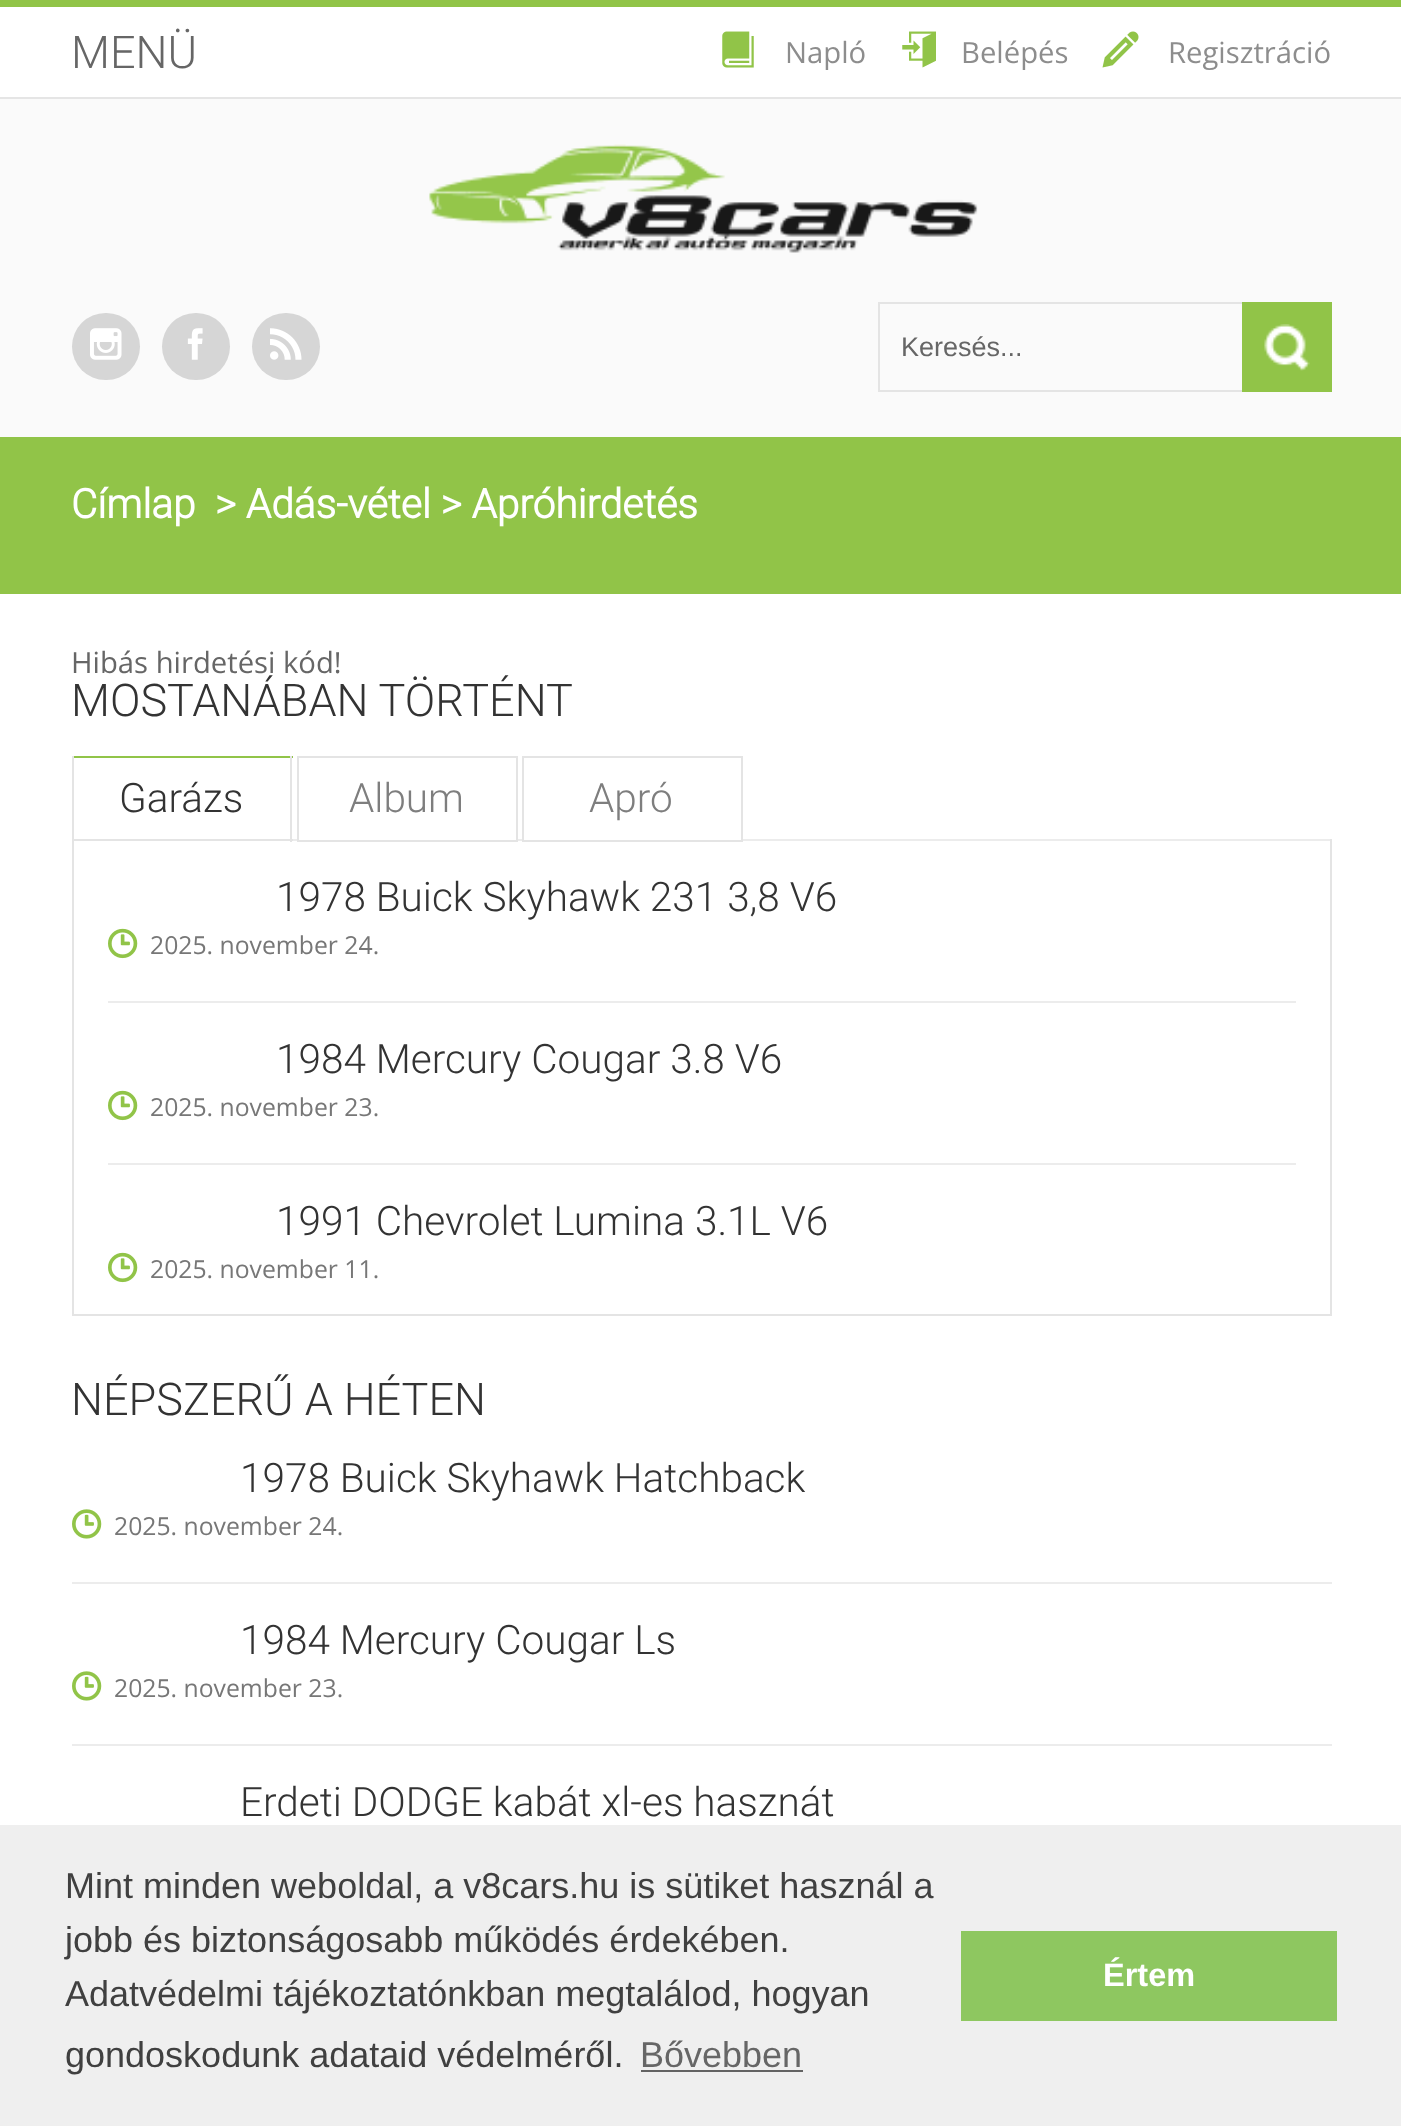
async function draw(canvas) {
	canvas.width = 1401;
	canvas.height = 2126;
	const c = canvas.getContext('2d');
	c.miterLimit = 4;
	c.fontKerning = 'normal';
	async function loadImage(src) {
		const img = new Image();
		img.src = src;
		await img.decode();
		return img;
	}

	c.fillStyle = '#fff';
	c.fillRect(0, 0, 1401, 2126);
	c.fillStyle = '#91c448';
	c.fillRect(0, 0, 1401, 7);
	c.fillStyle = '#e5e5e5';
	c.fillRect(0, 97, 1401, 2);
	c.font = '300 45px Roboto';
	c.fillStyle = '#666';
	c.fillText('MENÜ', 71, 68);
	c.drawImage(await loadImage('img1.png'), 722, 31, 32, 37);
	c.font = '29.25px Open Sans';
	c.fillStyle = '#8d8d8d';
	c.fillText('Napló', 785, 63);
	c.drawImage(await loadImage('img2.png'), 902, 31, 34, 37);
	c.fillText('Belépés', 961, 63);
	c.drawImage(await loadImage('img3.png'), 1102, 31, 37, 37);
	c.fillText('Regisztráció', 1168, 63);
	c.fillStyle = '#fafafa';
	c.fillRect(0, 99, 1401, 338);
	c.drawImage(await loadImage('img4.png'), 429, 144, 549, 109);
	c.fillStyle = '#d6d6d6';
	c.beginPath();
	c.roundRect(72, 313, 68, 67, 33.5);
	c.fill();
	c.drawImage(await loadImage('img5.png'), 90, 328, 32, 32);
	c.beginPath();
	c.roundRect(162, 313, 68, 67, 33.5);
	c.fill();
	c.drawImage(await loadImage('img6.png'), 187, 328, 16, 32);
	c.beginPath();
	c.roundRect(252, 313, 68, 67, 33.5);
	c.fill();
	c.drawImage(await loadImage('img7.png'), 270, 328, 32, 32);
	c.strokeStyle = '#e4e4e4';
	c.lineWidth = 2;
	c.strokeRect(879, 303, 452, 88);
	c.font = '27px Liberation Sans';
	c.fillStyle = '#666';
	c.fillText('Keresés...', 901, 356);
	c.fillStyle = '#91c448';
	c.fillRect(1242, 302, 90, 90);
	c.drawImage(await loadImage('img8.png'), 1264, 324, 46, 47);
	c.fillRect(0, 437, 1401, 157);
	c.font = 'bold 40.5px Roboto';
	c.fillStyle = '#fff';
	c.fillText('Címlap', 71, 518);
	c.fillText('> Adás-vétel > Apróhirdetés', 215, 518);
	c.font = '29.25px Open Sans';
	c.fillStyle = '#666';
	c.fillText('Hibás hirdetési kód!', 71, 673);
	c.font = '300 45px Roboto';
	c.fillStyle = '#333';
	c.fillText('MOSTANÁBAN TÖRTÉNT', 71, 716);
	for (const [x, y, w, h, color] of [
		[72, 756, 221, 2, '#91c448'],
		[290, 756, 2, 86, '#e4e4e4'],
		[293, 839, 1039, 2, '#ececec'],
		[1330, 839, 2, 477, '#e4e4e4'],
		[72, 1314, 1260, 2, '#e4e4e4'],
		[72, 839, 2, 477, '#e4e4e4'],
		[72, 839, 221, 2, '#e4e4e4'],
		[72, 756, 2, 86, '#e4e4e4'],
	]) {
		c.fillStyle = color;
		c.fillRect(x, y, w, h);
	}
	c.font = '300 40.5px Roboto';
	c.fillStyle = '#333';
	c.fillText('Garázs', 119, 812);
	c.fillStyle = '#fff';
	c.fillRect(299, 839, 217, 1);
	c.strokeRect(298, 757, 219, 84);
	c.fillStyle = '#7e7e7e';
	c.fillText('Album', 349, 812);
	c.fillStyle = '#fff';
	c.fillRect(524, 839, 217, 1);
	c.strokeRect(523, 757, 219, 84);
	c.fillStyle = '#7e7e7e';
	c.fillText('Apró', 589, 812);
	c.fillStyle = '#ececec';
	c.fillRect(108, 1001, 1188, 2);
	c.fillStyle = '#333';
	c.fillText('1978 Buick Skyhawk 231 3,8 V6', 276, 911);
	c.drawImage(await loadImage('img9.png'), 108, 928, 30, 31);
	c.font = '24.75px Open Sans';
	c.fillStyle = '#777';
	c.fillText('2025. november 24.', 150, 954);
	c.fillStyle = '#ececec';
	c.fillRect(108, 1163, 1188, 2);
	c.font = '300 40.5px Roboto';
	c.fillStyle = '#333';
	c.fillText('1984 Mercury Cougar 3.8 V6', 276, 1073);
	c.drawImage(await loadImage('img9.png'), 108, 1090, 30, 31);
	c.font = '24.75px Open Sans';
	c.fillStyle = '#777';
	c.fillText('2025. november 23.', 150, 1116);
	c.font = '300 40.5px Roboto';
	c.fillStyle = '#333';
	c.fillText('1991 Chevrolet Lumina 3.1L V6', 276, 1235);
	c.drawImage(await loadImage('img9.png'), 108, 1252, 30, 31);
	c.font = '24.75px Open Sans';
	c.fillStyle = '#777';
	c.fillText('2025. november 11.', 150, 1278);
	c.font = '300 45px Roboto';
	c.fillStyle = '#333';
	c.fillText('NÉPSZERŰ A HÉTEN', 71, 1415);
	c.fillStyle = '#ececec';
	c.fillRect(72, 1582, 1260, 2);
	c.font = '300 40.5px Roboto';
	c.fillStyle = '#333';
	c.fillText('1978 Buick Skyhawk Hatchback', 240, 1492);
	c.drawImage(await loadImage('img10.png'), 72, 1509, 30, 30);
	c.font = '24.75px Open Sans';
	c.fillStyle = '#777';
	c.fillText('2025. november 24.', 114, 1535);
	c.fillStyle = '#ececec';
	c.fillRect(72, 1744, 1260, 2);
	c.font = '300 40.5px Roboto';
	c.fillStyle = '#333';
	c.fillText('1984 Mercury Cougar Ls', 240, 1654);
	c.drawImage(await loadImage('img10.png'), 72, 1671, 30, 30);
	c.font = '24.75px Open Sans';
	c.fillStyle = '#777';
	c.fillText('2025. november 23.', 114, 1697);
	c.font = '300 40.5px Roboto';
	c.fillStyle = '#333';
	c.fillText('Erdeti DODGE kabát xl-es hasznát', 240, 1816);
	c.fillStyle = '#efefef';
	c.fillRect(0, 1825, 1401, 301);
	c.font = '36px Liberation Sans';
	c.fillStyle = '#404040';
	for (const [text, x, y] of [
		['Mint minden weboldal, a v8cars.hu is sütiket használ a', 65, 1898],
		['jobb és biztonságosabb működés érdekében.', 65, 1952],
		['Adatvédelmi tájékoztatónkban megtalálod, hogyan', 65, 2006],
		['gondoskodunk adataid védelméről.', 65, 2067],
	]) {
		c.fillText(text, x, y);
	}
	c.fillStyle = '#666';
	c.fillText('Bővebben', 640, 2067);
	c.fillStyle = '#636363';
	c.fillRect(641, 2070, 162, 2);
	c.fillStyle = '#8ec760';
	c.fillRect(961, 1931, 376, 90);
	c.font = 'bold 32.5px Liberation Sans';
	c.fillStyle = '#fff';
	c.fillText('Értem', 1103, 1986);
}

draw(document.querySelector('canvas'));
